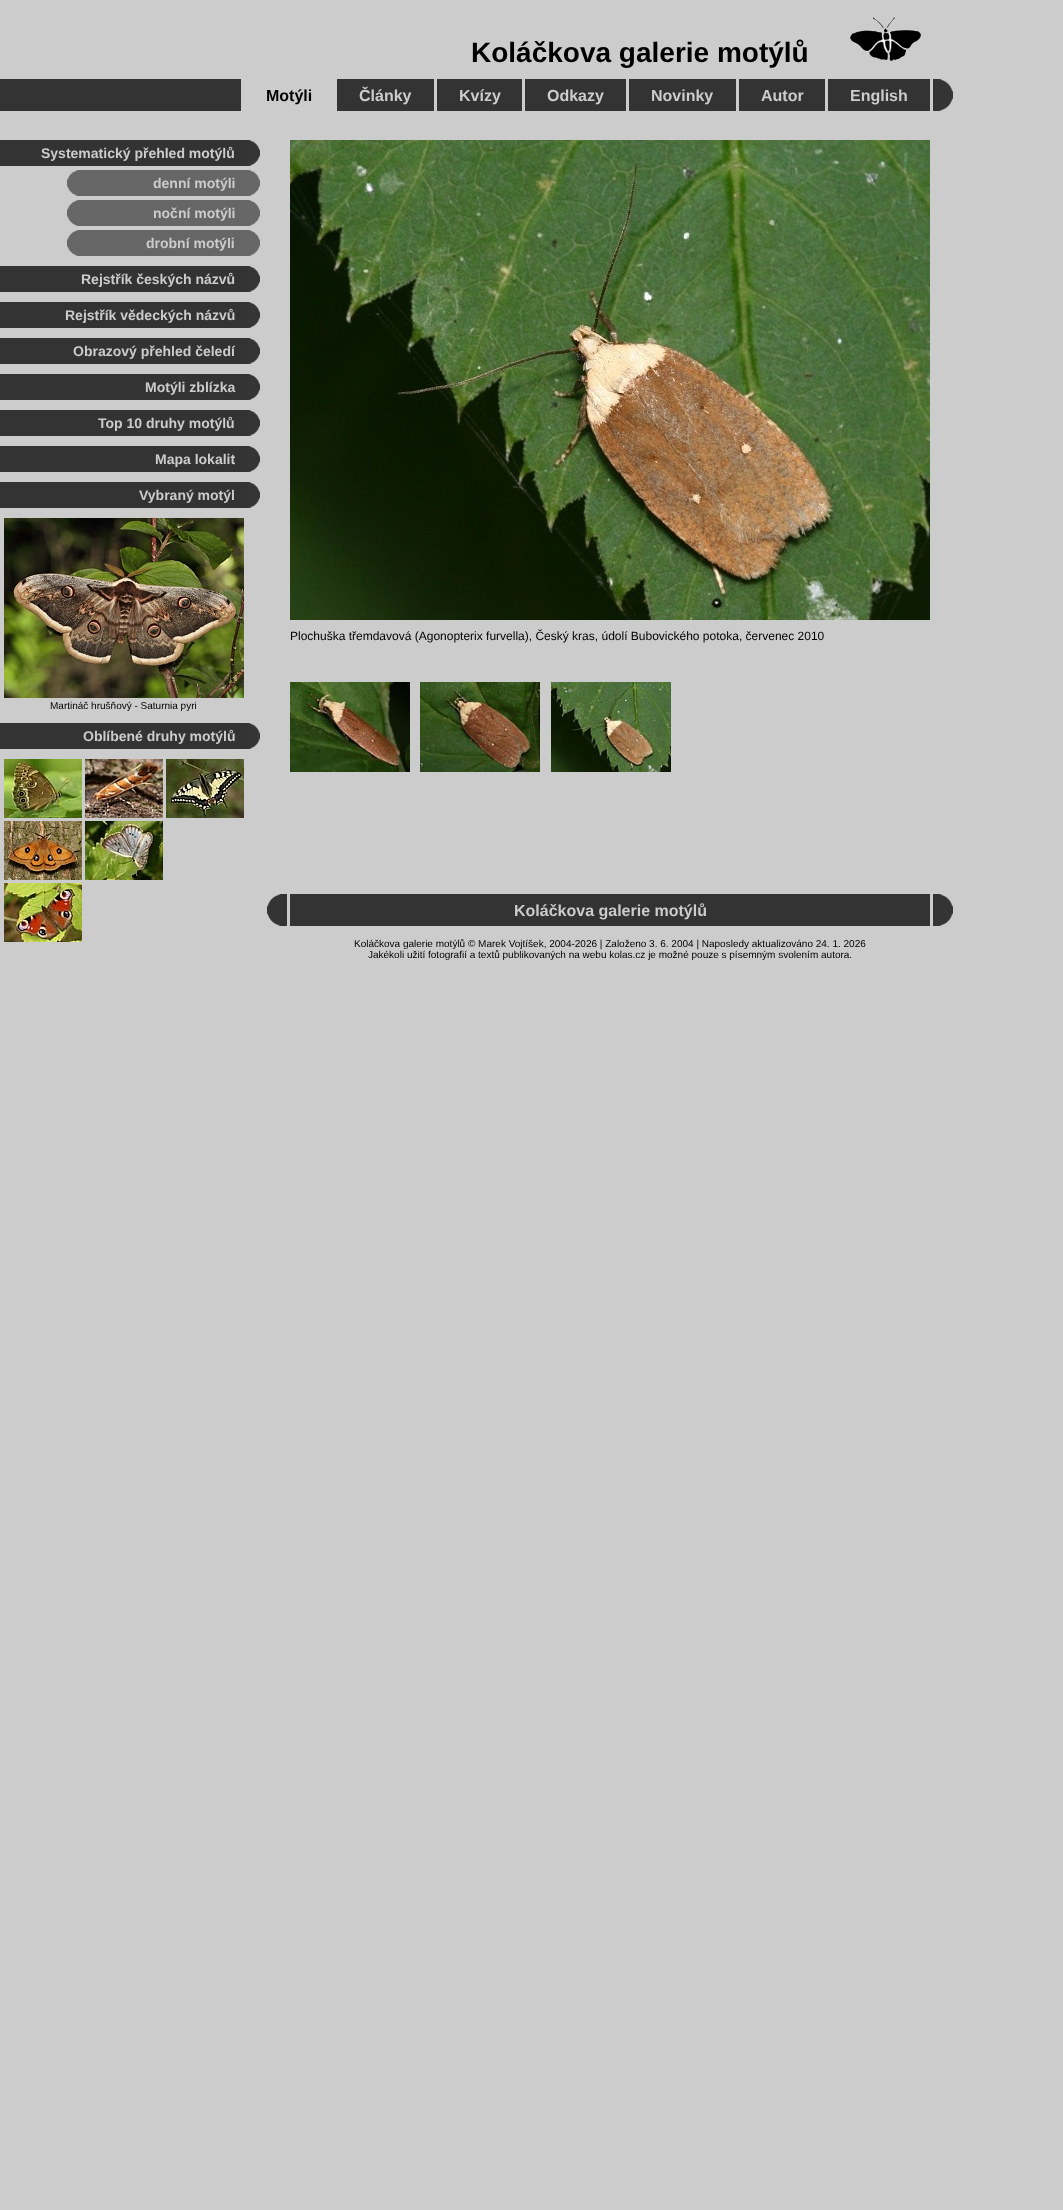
async function draw(canvas) {
	canvas.width = 1063;
	canvas.height = 2210;
	const c = canvas.getContext('2d');
	c.miterLimit = 4;
	c.fontKerning = 'normal';
	async function loadImage(src) {
		const img = new Image();
		img.src = src;
		await img.decode();
		return img;
	}

	c.fillStyle = '#ccc';
	c.fillRect(0, 0, 1063, 2210);
	c.font = 'bold 28px Liberation Sans';
	c.fillStyle = '#000';
	c.fillText('Koláčkova galerie motýlů', 471, 62);
	c.drawImage(await loadImage('img1.png'), 850, 17, 71, 44);
	for (const [x, y, w, h, color] of [
		[0, 79, 937, 32, '#333'],
		[241, 79, 96, 32, '#ccc'],
		[434, 79, 3, 32, '#ccc'],
	]) {
		c.fillStyle = color;
		c.fillRect(x, y, w, h);
	}
	c.font = 'bold 16px Liberation Sans';
	c.fillText('Články', 359, 101);
	c.fillStyle = '#000';
	c.fillText('Motýli', 266, 101);
	c.fillStyle = '#ccc';
	c.fillRect(522, 79, 3, 32);
	c.fillText('Kvízy', 459, 101);
	c.fillRect(626, 79, 3, 32);
	c.fillText('Odkazy', 547, 101);
	c.fillRect(736, 79, 3, 32);
	c.fillText('Novinky', 651, 101);
	c.fillRect(825, 79, 3, 32);
	c.fillText('Autor', 761, 101);
	c.fillRect(930, 79, 3, 32);
	c.fillText('English', 850, 101);
	c.drawImage(await loadImage('img2.png'), 937, 79, 16, 32);
	c.fillStyle = '#333';
	c.fillRect(0, 140, 247, 26);
	c.font = 'bold 14px Liberation Sans';
	c.fillStyle = '#ccc';
	c.fillText('Systematický přehled motýlů', 41, 158);
	c.drawImage(await loadImage('img3.png'), 247, 140, 13, 26);
	c.drawImage(await loadImage('img4.png'), 67, 170, 13, 26);
	c.fillStyle = '#666';
	c.fillRect(80, 170, 167, 26);
	c.fillStyle = '#ccc';
	c.fillText('denní motýli', 153, 188);
	c.drawImage(await loadImage('img5.png'), 247, 170, 13, 26);
	c.drawImage(await loadImage('img4.png'), 67, 200, 13, 26);
	c.fillStyle = '#666';
	c.fillRect(80, 200, 167, 26);
	c.fillStyle = '#ccc';
	c.fillText('noční motýli', 153, 218);
	c.drawImage(await loadImage('img5.png'), 247, 200, 13, 26);
	c.drawImage(await loadImage('img4.png'), 67, 230, 13, 26);
	c.fillStyle = '#666';
	c.fillRect(80, 230, 167, 26);
	c.fillStyle = '#ccc';
	c.fillText('drobní motýli', 146, 248);
	c.drawImage(await loadImage('img5.png'), 247, 230, 13, 26);
	c.fillStyle = '#333';
	c.fillRect(0, 266, 247, 26);
	c.fillStyle = '#ccc';
	c.fillText('Rejstřík českých názvů', 81, 284);
	c.drawImage(await loadImage('img3.png'), 247, 266, 13, 26);
	c.fillStyle = '#333';
	c.fillRect(0, 302, 247, 26);
	c.fillStyle = '#ccc';
	c.fillText('Rejstřík vědeckých názvů', 65, 320);
	c.drawImage(await loadImage('img3.png'), 247, 302, 13, 26);
	c.fillStyle = '#333';
	c.fillRect(0, 338, 247, 26);
	c.fillStyle = '#ccc';
	c.fillText('Obrazový přehled čeledí', 73, 356);
	c.drawImage(await loadImage('img3.png'), 247, 338, 13, 26);
	c.fillStyle = '#333';
	c.fillRect(0, 374, 247, 26);
	c.fillStyle = '#ccc';
	c.fillText('Motýli zblízka', 145, 392);
	c.drawImage(await loadImage('img3.png'), 247, 374, 13, 26);
	c.fillStyle = '#333';
	c.fillRect(0, 410, 247, 26);
	c.fillStyle = '#ccc';
	c.fillText('Top 10 druhy motýlů', 98, 428);
	c.drawImage(await loadImage('img3.png'), 247, 410, 13, 26);
	c.fillStyle = '#333';
	c.fillRect(0, 446, 247, 26);
	c.fillStyle = '#ccc';
	c.fillText('Mapa lokalit', 155, 464);
	c.drawImage(await loadImage('img3.png'), 247, 446, 13, 26);
	c.fillStyle = '#333';
	c.fillRect(0, 482, 247, 26);
	c.fillStyle = '#ccc';
	c.fillText('Vybraný motýl', 139, 500);
	c.drawImage(await loadImage('img3.png'), 247, 482, 13, 26);
	c.drawImage(await loadImage('img6.png'), 4, 518, 240, 180);
	c.font = '10px Liberation Sans';
	c.fillStyle = '#000';
	c.fillText('Martináč hrušňový - Saturnia pyri', 50, 709);
	c.fillStyle = '#333';
	c.fillRect(0, 723, 247, 26);
	c.font = 'bold 14px Liberation Sans';
	c.fillStyle = '#ccc';
	c.fillText('Oblíbené druhy motýlů', 83, 741);
	c.drawImage(await loadImage('img3.png'), 247, 723, 13, 26);
	c.drawImage(await loadImage('img7.png'), 4, 759, 78, 59);
	c.drawImage(await loadImage('img8.png'), 85, 759, 78, 59);
	c.drawImage(await loadImage('img9.png'), 166, 759, 78, 59);
	c.drawImage(await loadImage('img10.png'), 4, 821, 78, 59);
	c.drawImage(await loadImage('img11.png'), 85, 821, 78, 59);
	c.drawImage(await loadImage('img12.png'), 4, 883, 78, 59);
	c.drawImage(await loadImage('img13.png'), 290, 140, 640, 480);
	c.font = '12px Liberation Sans';
	c.fillStyle = '#000';
	c.fillText('Plochuška třemdavová (Agonopterix furvella), Český kras, údolí Bubovického potoka, červenec 2010', 290, 640);
	c.drawImage(await loadImage('img14.png'), 290, 682, 120, 90);
	c.drawImage(await loadImage('img15.png'), 420, 682, 120, 90);
	c.drawImage(await loadImage('img16.png'), 551, 682, 120, 90);
	c.fillStyle = '#333';
	c.fillRect(283, 894, 4, 32);
	c.drawImage(await loadImage('img17.png'), 267, 894, 16, 32);
	c.fillRect(290, 894, 640, 32);
	c.font = 'bold 16px Liberation Sans';
	c.fillStyle = '#ccc';
	c.fillText('Koláčkova galerie motýlů', 514, 916);
	c.fillStyle = '#333';
	c.fillRect(933, 894, 4, 32);
	c.drawImage(await loadImage('img2.png'), 937, 894, 16, 32);
	c.font = '10px Liberation Sans';
	c.fillStyle = '#000';
	c.fillText('Koláčkova galerie motýlů © Marek Vojtíšek, 2004-2026 | Založeno 3. 6. 2004 | Naposledy aktualizováno 24. 1. 2026', 354, 947);
	c.fillText('Jakékoli užití fotografií a textů publikovaných na webu kolas.cz je možné pouze s písemným svolením autora.', 368, 958);
}

draw(document.querySelector('canvas'));
